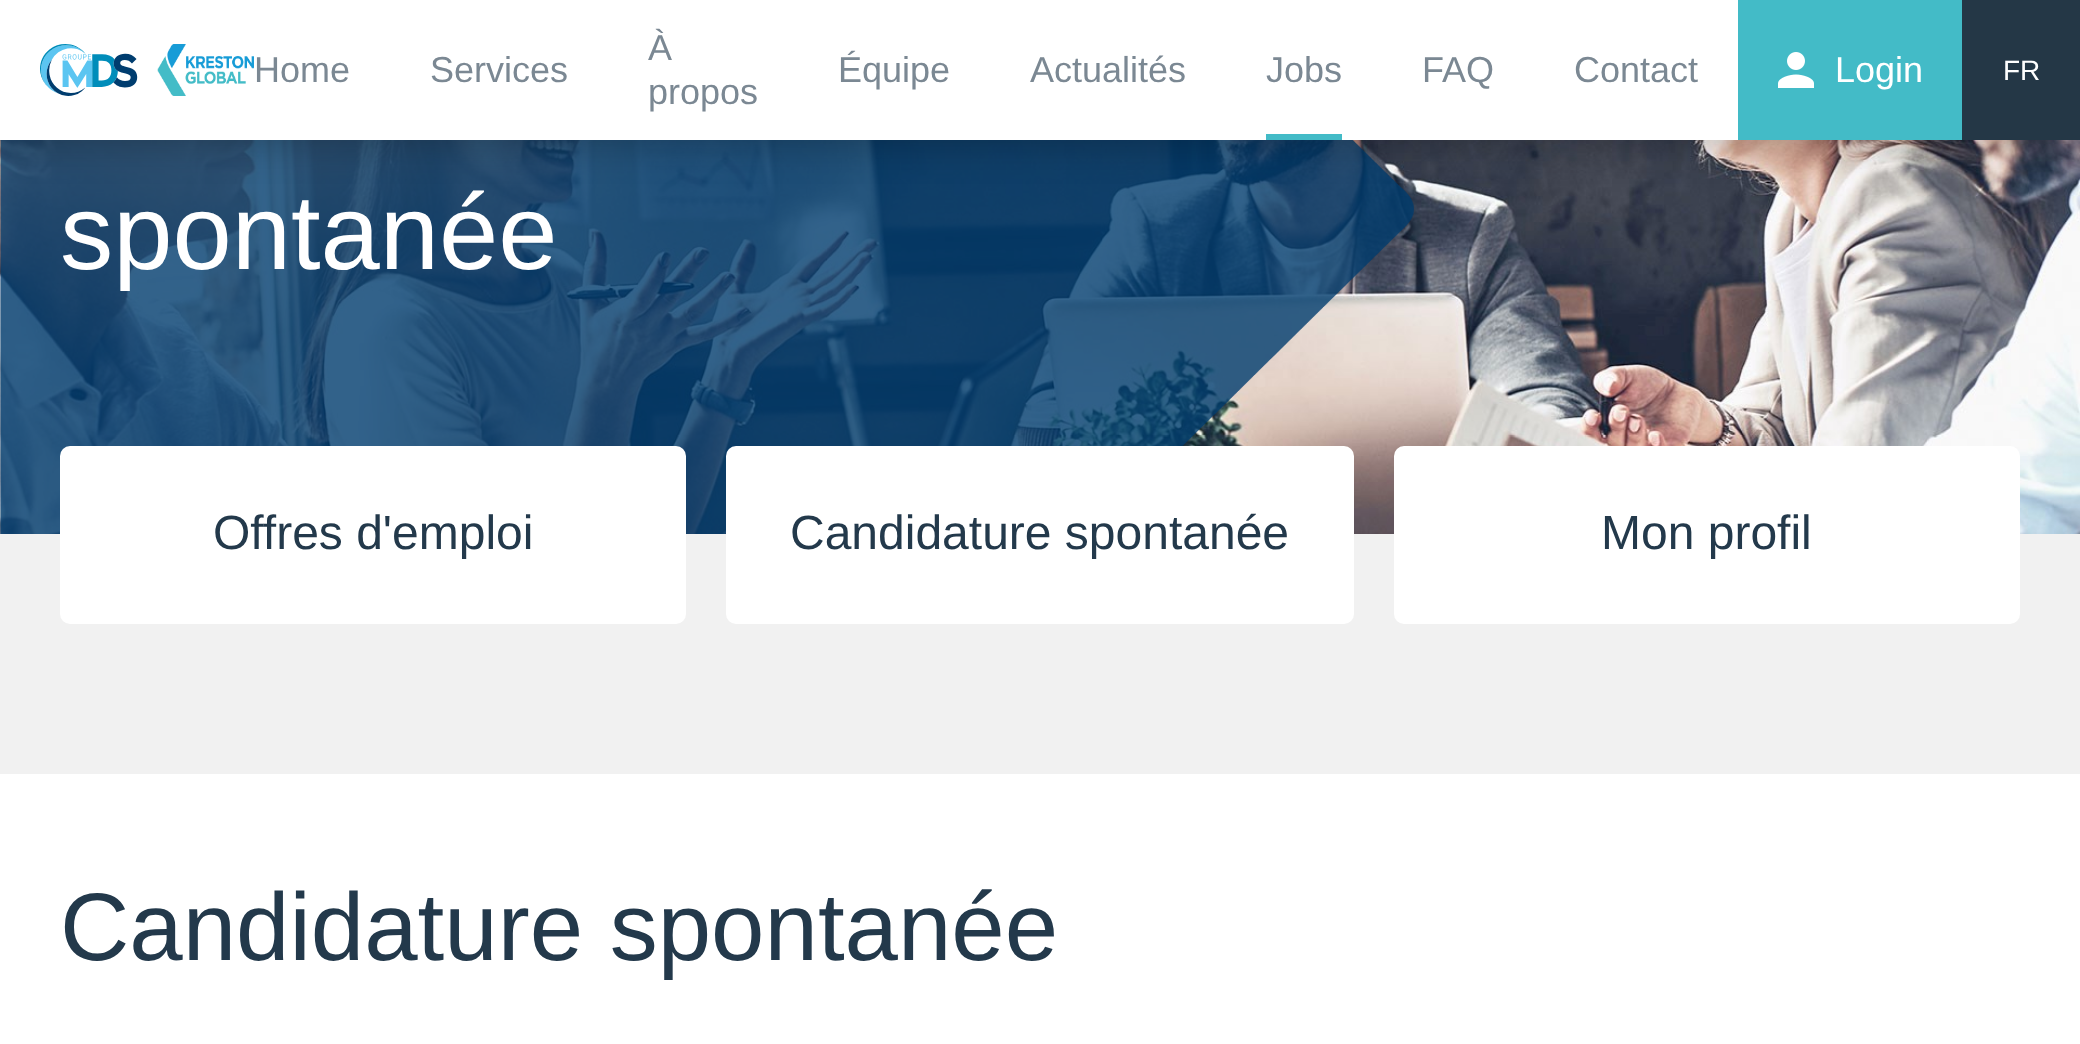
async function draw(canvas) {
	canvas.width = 2080;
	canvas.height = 1044;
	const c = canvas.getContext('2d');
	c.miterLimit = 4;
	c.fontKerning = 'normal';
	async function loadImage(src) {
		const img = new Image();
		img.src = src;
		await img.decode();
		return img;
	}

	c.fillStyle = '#fff';
	c.fillRect(0, 0, 2080, 1044);
	c.drawImage(await loadImage('img3.png'), 0, 140, 2080, 394);
	c.drawImage(await loadImage('img4.png'), 0, 140, 1414, 394);
	c.fillStyle = '#0000004d';
	c.filter = 'blur(20px)';
	c.beginPath();
	c.rect(0, 0, 2080, 140);
	c.fill();
	c.filter = 'none';
	c.fillStyle = '#fff';
	c.fillRect(0, 0, 1738, 140);
	c.drawImage(await loadImage('img1.png'), 40, 44, 214, 52);
	c.font = '36px Liberation Sans';
	c.fillStyle = '#7b8893';
	for (const [text, x, y] of [
		['Home', 254, 82],
		['Services', 430, 82],
		['À', 648, 60],
		['propos', 648, 104],
		['Équipe', 838, 82],
		['Actualités', 1030, 82],
		['Jobs', 1266, 82],
	]) {
		c.fillText(text, x, y);
	}
	c.fillStyle = '#43bbc7';
	c.fillRect(1266, 134, 76, 6);
	c.fillStyle = '#7b8893';
	c.fillText('FAQ', 1422, 82);
	c.fillText('Contact', 1574, 82);
	c.fillStyle = '#43bbc7';
	c.fillRect(1738, 0, 224, 140);
	c.drawImage(await loadImage('img2.png'), 1778, 52, 36, 36);
	c.fillStyle = '#fff';
	c.fillText('Login', 1835, 82);
	c.fillStyle = '#243746';
	c.fillRect(1962, 0, 118, 140);
	c.font = '28px Liberation Sans';
	c.fillStyle = '#fff';
	c.fillText('FR', 2003, 80);
	c.font = '106.5px Liberation Sans';
	c.fillText('spontanée', 60, 269);
	c.fillStyle = '#f1f1f1';
	c.fillRect(0, 534, 2080, 240);
	c.fillStyle = '#fff';
	c.beginPath();
	c.roundRect(60, 446, 626, 178, 10);
	c.fill();
	c.font = '48px Liberation Sans';
	c.fillStyle = '#23394b';
	c.fillText('Offres d\'emploi', 213, 549);
	c.fillStyle = '#fff';
	c.beginPath();
	c.roundRect(726, 446, 628, 178, 10);
	c.fill();
	c.fillStyle = '#23394b';
	c.fillText('Candidature spontanée', 790, 549);
	c.fillStyle = '#fff';
	c.beginPath();
	c.roundRect(1394, 446, 626, 178, 10);
	c.fill();
	c.fillStyle = '#23394b';
	c.fillText('Mon profil', 1601, 549);
	c.font = '96px Liberation Sans';
	c.fillText('Candidature spontanée', 60, 960);
}

draw(document.querySelector('canvas'));
